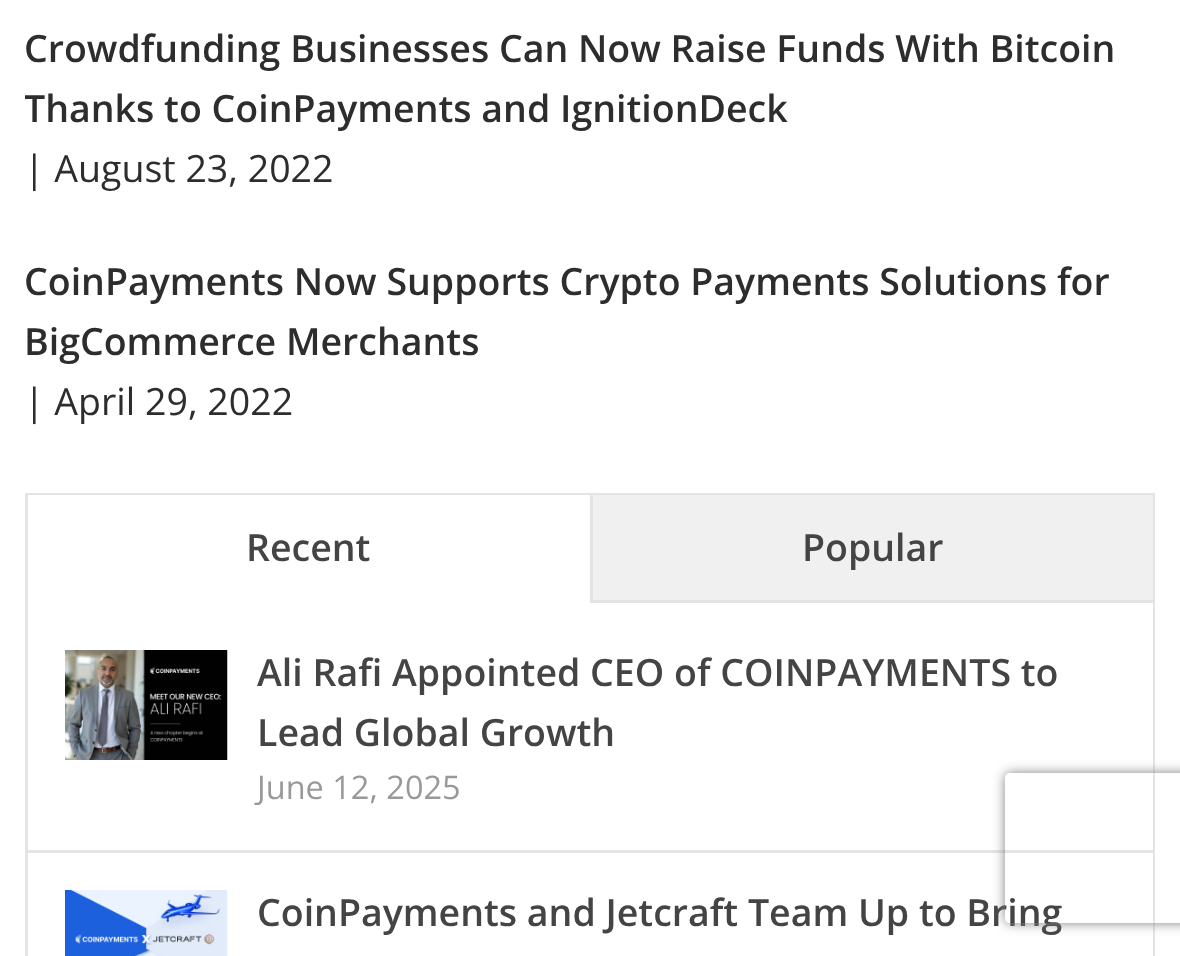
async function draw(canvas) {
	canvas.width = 1180;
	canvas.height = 956;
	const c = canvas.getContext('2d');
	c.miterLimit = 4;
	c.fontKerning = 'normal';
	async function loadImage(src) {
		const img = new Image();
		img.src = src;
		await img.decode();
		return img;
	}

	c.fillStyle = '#fff';
	c.fillRect(0, 0, 1180, 956);
	c.font = '600 37.5px Open Sans';
	c.fillStyle = '#2d2d2d';
	c.fillText('Crowdfunding Businesses Can Now Raise Funds With Bitcoin', 24, 62);
	c.save();
	c.beginPath();
	c.rect(25, 18, 1130, 120);
	c.clip();
	c.fillText('Thanks to CoinPayments and IgnitionDeck', 24, 122);
	c.restore();
	c.font = '37.5px Open Sans';
	c.fillText('| August 23, 2022', 24, 182);
	c.font = '600 37.5px Open Sans';
	c.fillText('CoinPayments Now Supports Crypto Payments Solutions for', 24, 295);
	c.fillText('BigCommerce Merchants', 24, 355);
	c.font = '37.5px Open Sans';
	c.fillText('| April 29, 2022', 24, 415);
	c.strokeStyle = '#e4e4e4';
	c.lineWidth = 3;
	c.strokeRect(26.5, 494.5, 1127, 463);
	c.fillStyle = '#fff';
	c.fillRect(28, 495, 562, 1);
	c.font = '600 37.5px Open Sans';
	c.fillStyle = '#444';
	c.fillText('Recent', 246, 561);
	for (const [x, y, w, h, color] of [
		[593, 495, 560, 105, '#f0f0f0'],
		[590, 600, 563, 3, '#e4e4e4'],
		[590, 495, 3, 108, '#e4e4e4'],
	]) {
		c.fillStyle = color;
		c.fillRect(x, y, w, h);
	}
	c.fillStyle = '#444';
	c.fillText('Popular', 802, 561);
	c.fillStyle = '#fff';
	c.fillRect(1152, 603, 1, 353);
	c.fillStyle = '#e4e4e4';
	c.fillRect(28, 850, 1125, 3);
	c.drawImage(await loadImage('img1.png'), 65, 650, 163, 110);
	c.fillStyle = '#444';
	c.fillText('Ali Rafi Appointed CEO of COINPAYMENTS to', 257, 686);
	c.fillText('Lead Global Growth', 257, 746);
	c.font = '32.5px Open Sans';
	c.fillStyle = '#999';
	c.fillText('June 12, 2025', 257, 799);
	c.drawImage(await loadImage('img2.png'), 65, 890, 163, 66);
	c.font = '600 37.5px Open Sans';
	c.fillStyle = '#444';
	c.fillText('CoinPayments and Jetcraft Team Up to Bring', 257, 926);
	c.save();
	c.beginPath();
	c.moveTo(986, 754);
	c.lineTo(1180, 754);
	c.lineTo(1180, 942);
	c.lineTo(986, 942);
	c.closePath();
	c.moveTo(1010, 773);
	c.lineTo(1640, 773);
	c.bezierCurveTo(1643, 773, 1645, 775, 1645, 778);
	c.lineTo(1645, 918);
	c.bezierCurveTo(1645, 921, 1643, 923, 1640, 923);
	c.lineTo(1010, 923);
	c.bezierCurveTo(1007, 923, 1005, 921, 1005, 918);
	c.lineTo(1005, 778);
	c.bezierCurveTo(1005, 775, 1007, 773, 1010, 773);
	c.closePath();
	c.clip('evenodd');
	c.fillStyle = '#808080';
	c.filter = 'blur(6px)';
	c.beginPath();
	c.roundRect(1005, 773, 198, 150, 5);
	c.fill();
	c.filter = 'none';
	c.restore();
}

draw(document.querySelector('canvas'));
